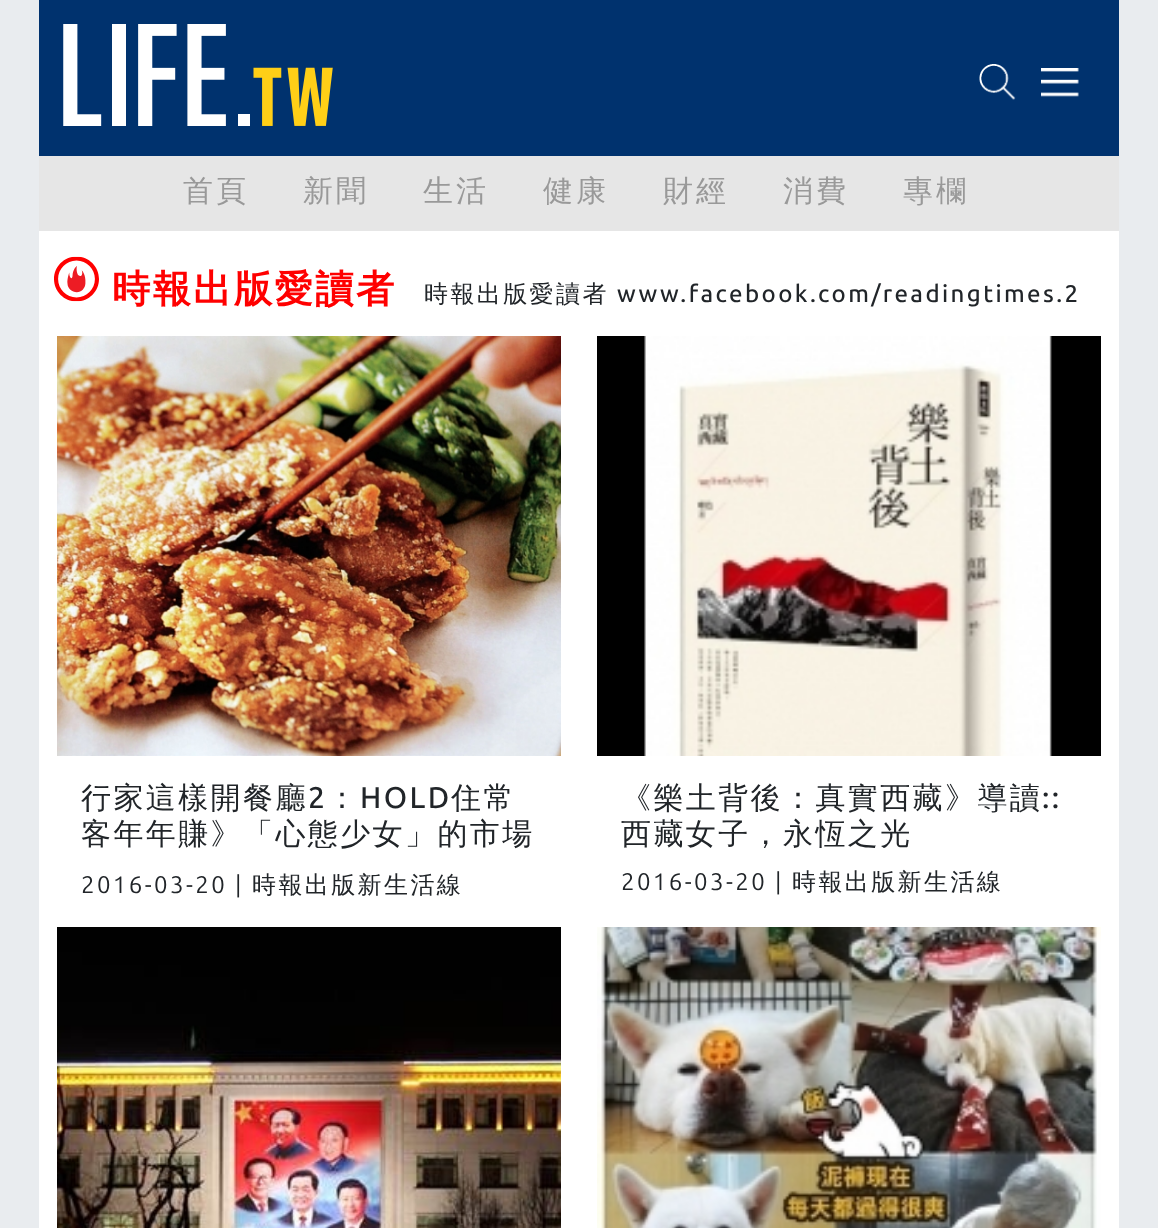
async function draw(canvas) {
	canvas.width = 1158;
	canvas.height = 1228;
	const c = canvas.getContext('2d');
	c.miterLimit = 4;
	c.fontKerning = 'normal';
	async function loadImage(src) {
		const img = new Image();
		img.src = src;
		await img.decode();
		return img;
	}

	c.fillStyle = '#e9ecef';
	c.fillRect(0, 0, 1158, 1228);
	c.fillStyle = '#fff';
	c.fillRect(39, 231, 1080, 997);
	c.fillStyle = '#00326e';
	c.fillRect(39, 0, 1080, 156);
	c.drawImage(await loadImage('img1.png'), 63, 24, 270, 102);
	c.drawImage(await loadImage('img2.png'), 979, 64, 37, 36);
	c.drawImage(await loadImage('img3.png'), 1041, 68, 38, 29);
	c.fillStyle = '#e6e6e6';
	c.fillRect(39, 156, 1080, 75);
	c.letterSpacing = '3px';
	c.font = '500 30px WenQuanYi Zen Hei';
	c.fillStyle = '#999';
	for (const [text, x, y] of [
		['首頁', 183, 201],
		['新聞', 303, 201],
		['生活', 423, 201],
		['健康', 543, 201],
		['財經', 663, 201],
		['消費', 783, 201],
		['專欄', 903, 201],
	]) {
		c.fillText(text, x, y);
	}
	c.drawImage(await loadImage('img4.png'), 54, 256, 45, 46);
	c.letterSpacing = '2.4px';
	c.font = 'bold 38.25px WenQuanYi Zen Hei';
	c.fillStyle = '#f00';
	c.fillText('時報出版愛讀者', 112, 302);
	c.font = '500 24px WenQuanYi Zen Hei';
	c.fillStyle = '#212529';
	c.fillText('時報出版愛讀者', 424, 302);
	c.font = '500 24px Ubuntu';
	c.fillText('www.facebook.com/readingtimes.2', 617, 302);
	c.drawImage(await loadImage('img5.png'), 57, 336, 504, 420);
	c.font = '500 30px WenQuanYi Zen Hei';
	c.fillText('行家這樣開餐廳', 81, 808);
	c.font = '500 30px Ubuntu';
	c.fillText('2', 308, 808);
	c.font = '500 30px WenQuanYi Zen Hei';
	c.fillText('：', 327, 808);
	c.font = '500 30px Ubuntu';
	c.fillText('HOLD', 360, 808);
	c.font = '500 30px WenQuanYi Zen Hei';
	c.fillText('住常', 451, 808);
	c.fillText('客年年賺》「心態少女」的市場', 81, 844);
	c.font = '24px Ubuntu';
	c.fillText('2016-03-20 |', 81, 893);
	c.font = '500 24px WenQuanYi Zen Hei';
	c.fillText('時報出版新生活線', 252, 893);
	c.drawImage(await loadImage('img6.png'), 597, 336, 504, 420);
	c.font = '500 30px WenQuanYi Zen Hei';
	c.fillText('《樂土背後：真實西藏》導讀', 621, 808);
	c.font = '500 30px Ubuntu';
	c.fillText('::', 1042, 808);
	c.font = '500 30px WenQuanYi Zen Hei';
	c.fillText('西藏女子，永恆之光', 621, 844);
	c.font = '24px Ubuntu';
	c.fillText('2016-03-20 |', 621, 890);
	c.font = '500 24px WenQuanYi Zen Hei';
	c.fillText('時報出版新生活線', 792, 890);
	c.drawImage(await loadImage('img7.png'), 57, 927, 504, 301);
	c.drawImage(await loadImage('img8.png'), 597, 927, 504, 301);
}

draw(document.querySelector('canvas'));
